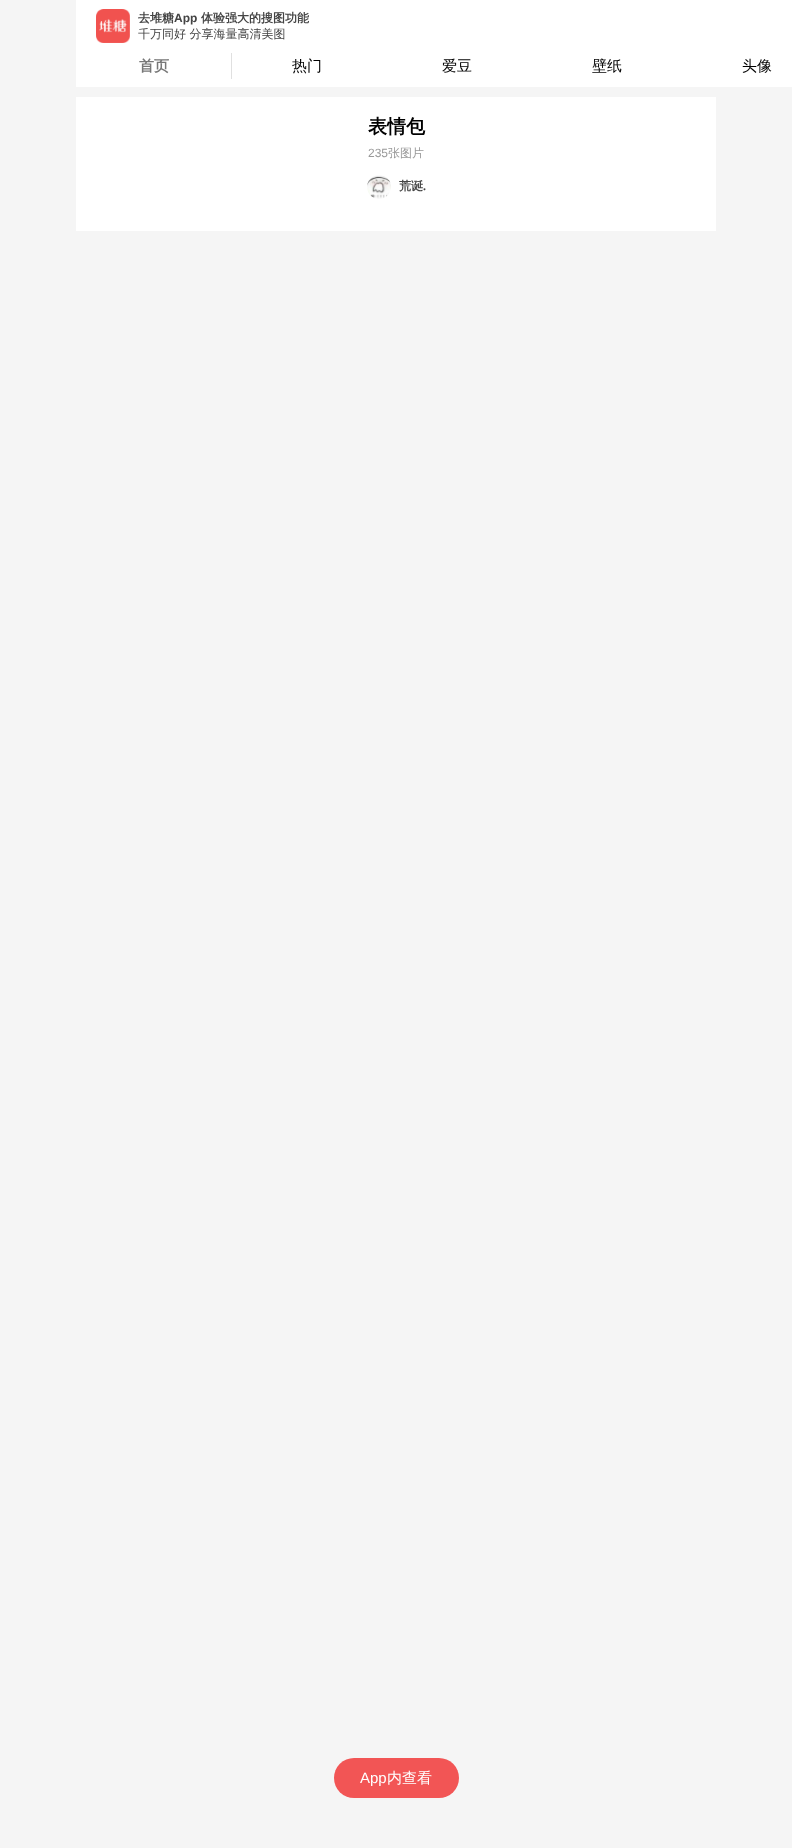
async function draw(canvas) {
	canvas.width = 792;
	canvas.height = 1848;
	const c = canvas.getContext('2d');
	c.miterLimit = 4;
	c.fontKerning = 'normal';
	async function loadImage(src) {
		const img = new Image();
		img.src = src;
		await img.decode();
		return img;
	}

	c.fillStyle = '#f5f5f5';
	c.fillRect(0, 0, 792, 1848);
	c.fillStyle = '#fff';
	c.fillRect(76, 0, 716, 87);
	c.drawImage(await loadImage('img1.png'), 96, 9, 34, 34);
	c.font = 'bold 12px WenQuanYi Zen Hei';
	c.fillStyle = '#444';
	c.fillText('去堆糖', 138, 22);
	c.font = 'bold 12px Liberation Sans';
	c.fillText('App', 174, 22);
	c.font = 'bold 12px WenQuanYi Zen Hei';
	c.fillText('体验强大的搜图功能', 201, 22);
	c.font = '500 12px WenQuanYi Zen Hei';
	c.fillText('千万同好 分享海量高清美图', 138, 38);
	c.font = 'bold 15px WenQuanYi Zen Hei';
	c.fillStyle = '#777';
	c.fillText('首页', 139, 71);
	c.fillStyle = '#e0e0e0';
	c.fillRect(231, 53, 1, 26);
	c.font = '500 15px WenQuanYi Zen Hei';
	c.fillStyle = '#000';
	for (const [text, x, y] of [
		['热门', 292, 71],
		['爱豆', 442, 71],
		['壁纸', 592, 71],
		['头像', 742, 71],
	]) {
		c.fillText(text, x, y);
	}
	c.fillStyle = '#fff';
	c.fillRect(76, 97, 640, 134);
	c.font = 'bold 19px WenQuanYi Zen Hei';
	c.fillStyle = '#000';
	c.fillText('表情包', 368, 133);
	c.font = '12px Liberation Sans';
	c.fillStyle = '#999';
	c.fillText('235', 368, 157);
	c.font = '500 12px WenQuanYi Zen Hei';
	c.fillText('张图片', 388, 157);
	c.drawImage(await loadImage('img2.png'), 367, 175, 24, 24);
	c.font = 'bold 12px WenQuanYi Zen Hei';
	c.fillStyle = '#444';
	c.fillText('荒诞', 399, 190);
	c.font = 'bold 12px Liberation Serif';
	c.fillText('.', 423, 190);
	c.fillStyle = '#f25555';
	c.beginPath();
	c.roundRect(334, 1758, 125, 40, 20);
	c.fill();
	c.font = '15px Liberation Sans';
	c.fillStyle = '#fff';
	c.fillText('App', 360, 1783);
	c.font = '500 15px WenQuanYi Zen Hei';
	c.fillText('内查看', 387, 1783);
}

draw(document.querySelector('canvas'));
